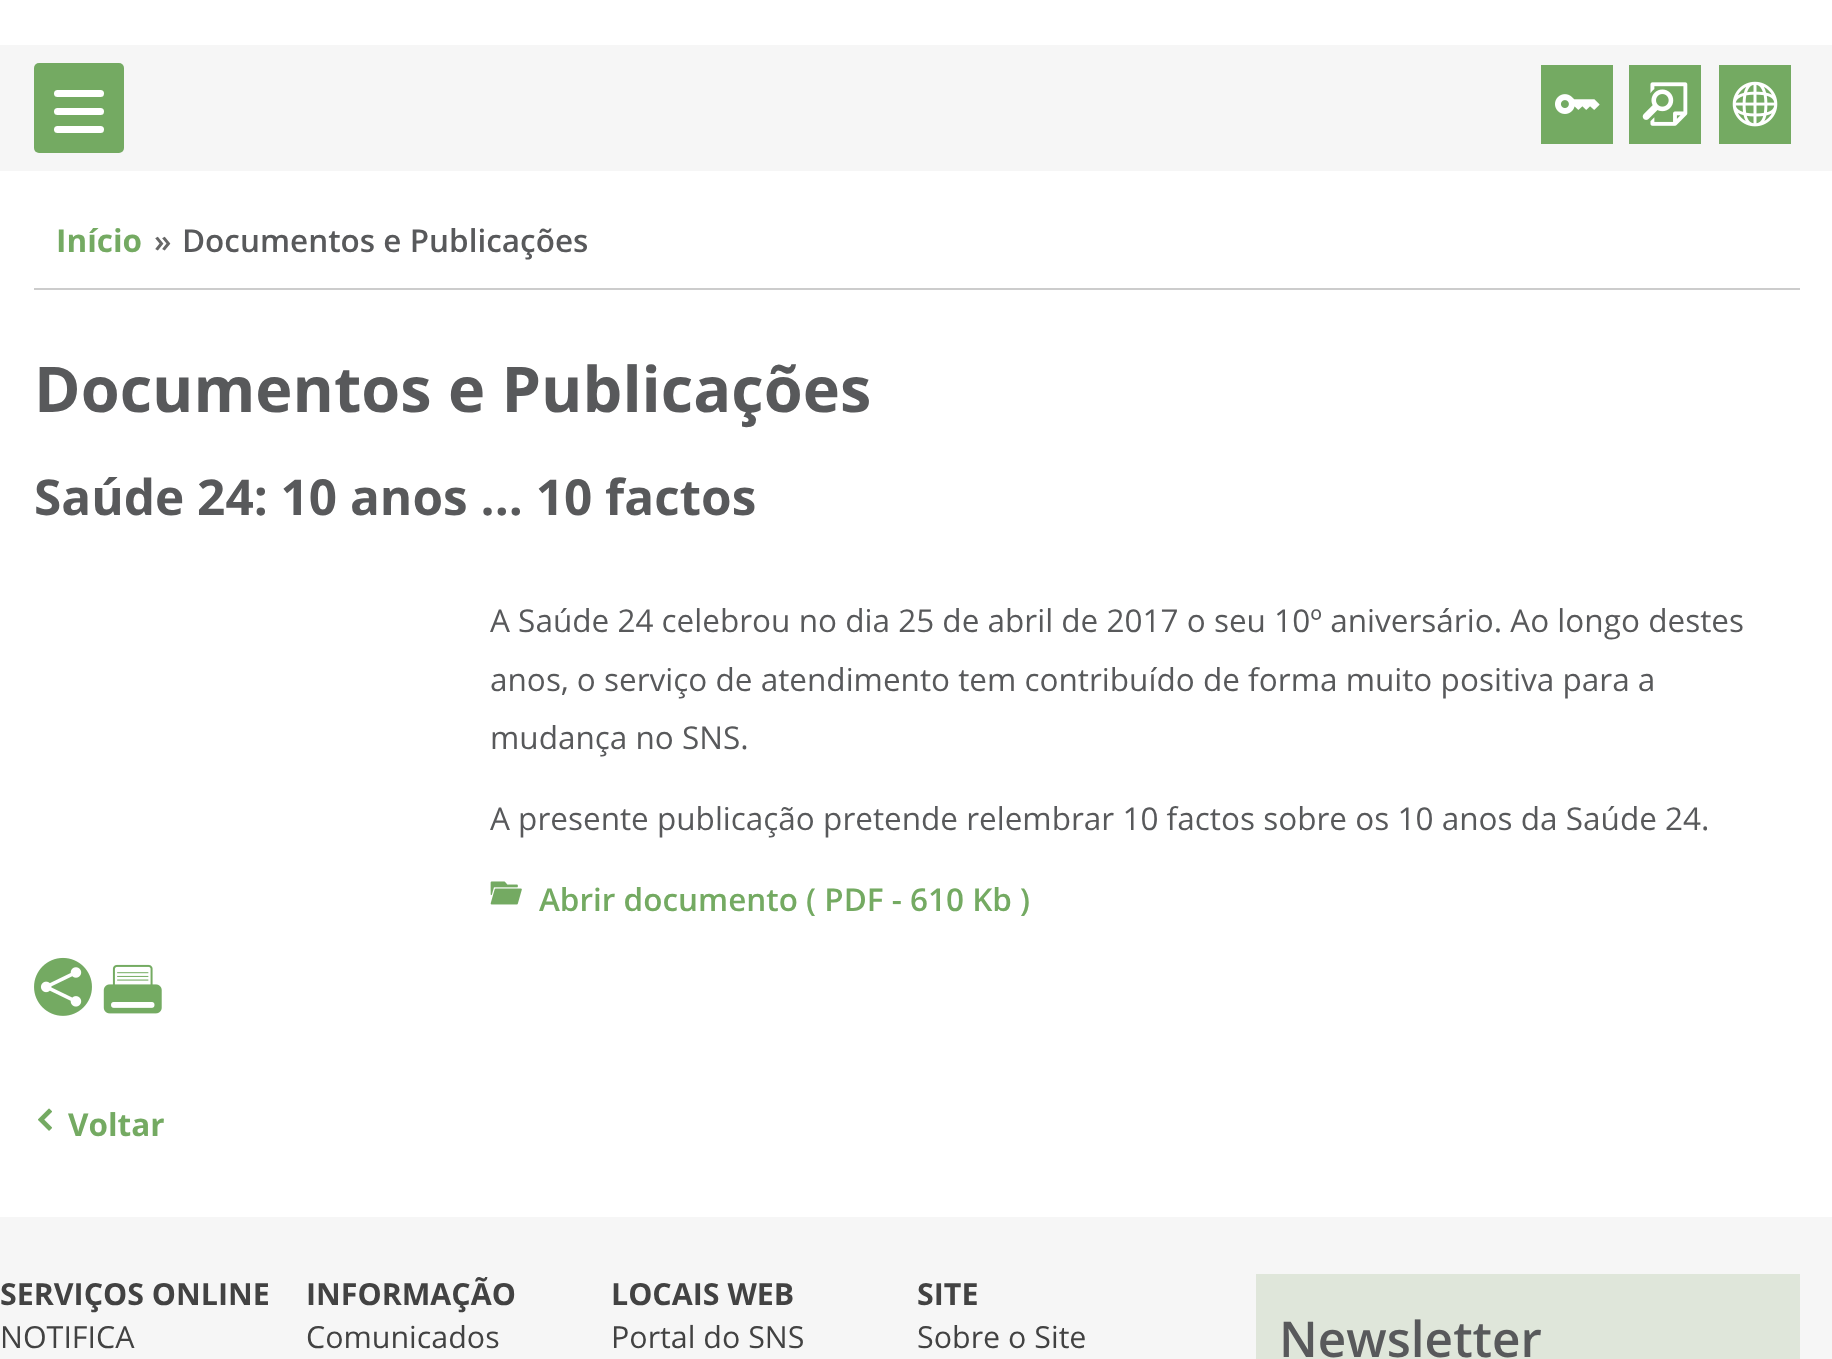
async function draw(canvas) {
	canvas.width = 1832;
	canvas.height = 1359;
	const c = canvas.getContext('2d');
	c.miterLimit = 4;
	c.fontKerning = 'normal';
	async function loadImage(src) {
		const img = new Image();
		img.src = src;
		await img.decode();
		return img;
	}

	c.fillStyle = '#fff';
	c.fillRect(0, 0, 1832, 1359);
	c.fillStyle = '#f6f6f6';
	c.fillRect(0, 45, 1832, 126);
	c.fillStyle = '#74aa62';
	c.beginPath();
	c.roundRect(34, 63, 90, 90, 5);
	c.fill();
	c.fillStyle = '#fff';
	c.beginPath();
	c.roundRect(54, 90, 50, 7, 3.5);
	c.fill();
	c.beginPath();
	c.roundRect(54, 108, 50, 7, 3.5);
	c.fill();
	c.beginPath();
	c.roundRect(54, 126, 50, 7, 3.5);
	c.fill();
	c.fillStyle = '#74aa62';
	c.fillRect(1541, 65, 72, 79);
	c.drawImage(await loadImage('img1.png'), 1555, 94, 45, 20);
	c.fillRect(1629, 65, 72, 79);
	c.drawImage(await loadImage('img2.png'), 1642, 82, 46, 44);
	c.fillRect(1719, 65, 72, 79);
	c.drawImage(await loadImage('img3.png'), 1732, 81, 46, 46);
	c.fillStyle = '#ccc';
	c.fillRect(34, 288, 1766, 2);
	c.font = 'bold 31.5px Open Sans';
	c.fillStyle = '#74aa62';
	c.fillText('Início', 56, 252);
	c.font = '600 31.5px Open Sans';
	c.fillStyle = '#676767';
	c.fillText('»', 154, 252);
	c.fillStyle = '#58595b';
	c.fillText('Documentos e Publicações', 182, 252);
	c.font = 'bold 63px Open Sans';
	c.fillText('Documentos e Publicações', 34, 412);
	c.font = 'bold 49.5px Open Sans';
	c.fillText('Saúde 24: 10 anos ... 10 factos', 34, 515);
	c.font = '31.5px Open Sans';
	for (const [text, x, y] of [
		['A Saúde 24 celebrou no dia 25 de abril de 2017 o seu 10º aniversário. Ao longo destes', 490, 632],
		['anos, o serviço de atendimento tem contribuído de forma muito positiva para a', 490, 691],
		['mudança no SNS.', 490, 749],
		['A presente publicação pretende relembrar 10 factos sobre os 10 anos da Saúde 24.', 490, 830],
	]) {
		c.fillText(text, x, y);
	}
	c.drawImage(await loadImage('img4.png'), 490, 881, 32, 24);
	c.font = '600 31.5px Open Sans';
	c.fillStyle = '#74aa62';
	c.fillText('Abrir documento ( PDF - 610 Kb )', 539, 911);
	c.drawImage(await loadImage('img5.png'), 34, 957, 58, 59);
	c.drawImage(await loadImage('img6.png'), 103, 964, 59, 50);
	c.drawImage(await loadImage('img7.png'), 38, 1108, 14, 23);
	c.font = 'bold 31.5px Open Sans';
	c.fillText('Voltar', 68, 1136);
	c.fillStyle = '#f6f6f6';
	c.fillRect(0, 1217, 1832, 142);
	c.font = 'bold 30.4px Open Sans';
	c.fillStyle = '#424242';
	c.fillText('SERVIÇOS ONLINE', 0, 1305);
	c.font = '30.4px Open Sans';
	c.fillText('NOTIFICA', 0, 1348);
	c.font = 'bold 30.4px Open Sans';
	c.fillText('INFORMAÇÃO', 306, 1305);
	c.font = '30.4px Open Sans';
	c.fillText('Comunicados', 306, 1348);
	c.font = 'bold 30.4px Open Sans';
	c.fillText('LOCAIS WEB', 611, 1305);
	c.font = '30.4px Open Sans';
	c.fillText('Portal do SNS', 611, 1348);
	c.font = 'bold 30.4px Open Sans';
	c.fillText('SITE', 917, 1305);
	c.font = '30.4px Open Sans';
	c.fillText('Sobre o Site', 917, 1348);
	c.fillStyle = '#dfe6da';
	c.fillRect(1256, 1274, 544, 85);
	c.font = '600 49.5px Open Sans';
	c.fillStyle = '#58595b';
	c.fillText('Newsletter', 1279, 1357);
}

draw(document.querySelector('canvas'));
